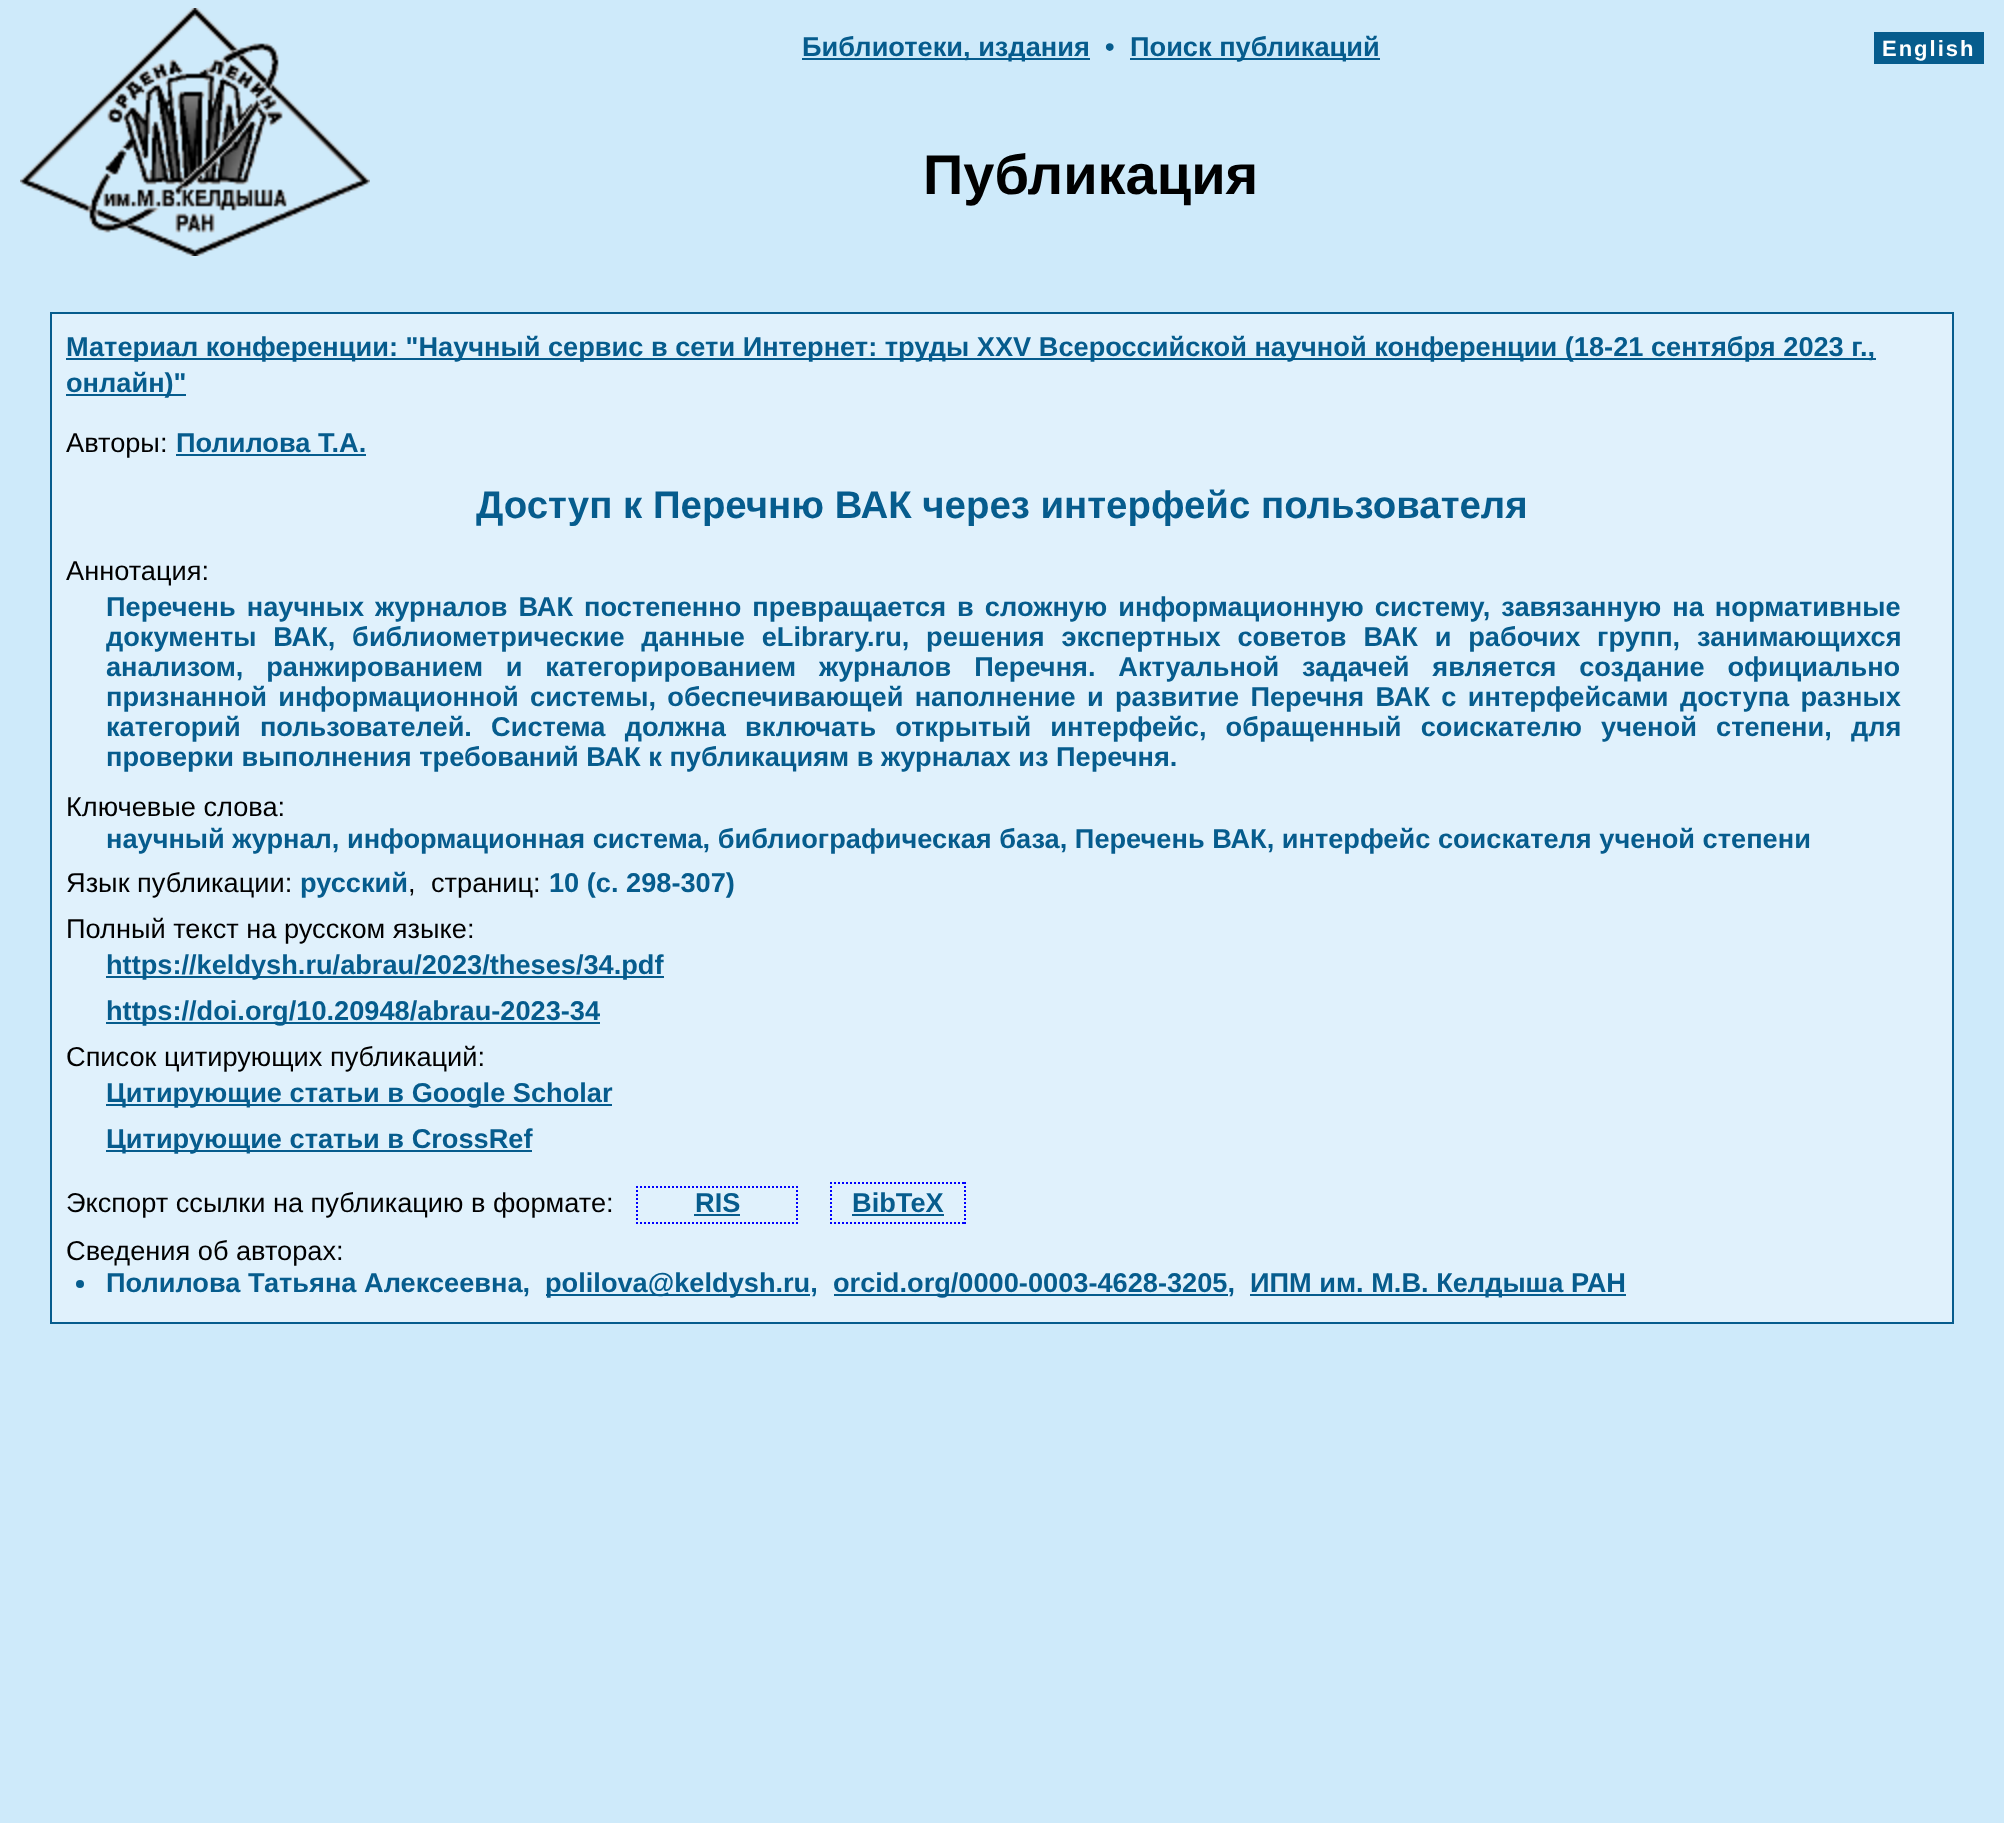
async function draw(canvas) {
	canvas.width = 2004;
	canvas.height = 1823;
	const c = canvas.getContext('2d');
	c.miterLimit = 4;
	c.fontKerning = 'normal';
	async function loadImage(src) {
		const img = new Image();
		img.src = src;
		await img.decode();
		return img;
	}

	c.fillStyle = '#ceeafa';
	c.fillRect(0, 0, 2004, 1823);
	c.drawImage(await loadImage('img1.png'), 20, 8, 350, 248);
	c.fillStyle = '#065c8d';
	c.fillRect(802, 58, 288, 2);
	c.font = 'bold 27.2px Liberation Sans';
	c.fillText('Библиотеки, издания', 802, 56);
	c.fillText('•', 1105, 56);
	c.fillRect(1130, 58, 250, 2);
	c.fillText('Поиск публикаций', 1130, 56);
	c.fillRect(1874, 32, 110, 32);
	c.letterSpacing = '2px';
	c.font = 'bold 22px Liberation Sans';
	c.fillStyle = '#fff';
	c.fillText('English', 1882, 56);
	c.letterSpacing = '0px';
	c.font = 'bold 56px Liberation Sans';
	c.fillStyle = '#000';
	c.fillText('Публикация', 923, 194);
	for (const [x, y, w, h, color] of [
		[50, 312, 1904, 1012, '#065c8d'],
		[52, 314, 1900, 1008, '#e0f1fc'],
		[66, 358, 1810, 2, '#065c8d'],
	]) {
		c.fillStyle = color;
		c.fillRect(x, y, w, h);
	}
	c.font = 'bold 27.2px Liberation Sans';
	c.fillText('Материал конференции: "Научный сервис в сети Интернет: труды XXV Всероссийской научной конференции (18-21 сентября 2023 г.,', 66, 356);
	c.fillRect(66, 394, 120, 2);
	c.fillText('онлайн)"', 66, 392);
	c.font = '27.2px Liberation Sans';
	c.fillStyle = '#000';
	c.fillText('Авторы:', 66, 452);
	c.font = 'bold 27.2px Liberation Sans';
	c.fillStyle = '#065c8d';
	c.fillText('Полилова Т.А.', 176, 452);
	c.fillRect(176, 454, 190, 2);
	c.font = 'bold 38.4px Liberation Sans';
	c.fillText('Доступ к Перечню ВАК через интерфейс пользователя', 476, 518);
	c.font = '27.2px Liberation Sans';
	c.fillStyle = '#000';
	c.fillText('Аннотация:', 66, 580);
	c.wordSpacing = '3.5px';
	c.font = 'bold 27.2px Liberation Sans';
	c.fillStyle = '#065c8d';
	c.fillText('Перечень научных журналов ВАК постепенно превращается в сложную информационную систему, завязанную на нормативные', 106, 616);
	c.wordSpacing = '9.25px';
	c.fillText('документы ВАК, библиометрические данные eLibrary.ru, решения экспертных советов ВАК и рабочих групп, занимающихся', 106, 646);
	c.wordSpacing = '15.25px';
	c.fillText('анализом, ранжированием и категорированием журналов Перечня. Актуальной задачей является создание официально', 106, 676);
	c.wordSpacing = '3.75px';
	c.fillText('признанной информационной системы, обеспечивающей наполнение и развитие Перечня ВАК с интерфейсами доступа разных', 106, 706);
	c.wordSpacing = '11.6px';
	c.fillText('категорий пользователей. Система должна включать открытый интерфейс, обращенный соискателю ученой степени, для', 106, 736);
	c.wordSpacing = '0px';
	c.fillText('проверки выполнения требований ВАК к публикациям в журналах из Перечня.', 106, 766);
	c.font = '27.2px Liberation Sans';
	c.fillStyle = '#000';
	c.fillText('Ключевые слова:', 66, 816);
	c.font = 'bold 27.2px Liberation Sans';
	c.fillStyle = '#065c8d';
	c.fillText('научный журнал, информационная система, библиографическая база, Перечень ВАК, интерфейс соискателя ученой степени', 106, 848);
	c.font = '27.2px Liberation Sans';
	c.fillStyle = '#000';
	c.fillText('Язык публикации:', 66, 892);
	c.font = 'bold 27.2px Liberation Sans';
	c.fillStyle = '#065c8d';
	c.fillText('русский', 300, 892);
	c.font = '27.2px Liberation Sans';
	c.fillStyle = '#000';
	c.fillText(',', 408, 892);
	c.fillText('страниц:', 431, 892);
	c.font = 'bold 27.2px Liberation Sans';
	c.fillStyle = '#065c8d';
	c.fillText('10 (с. 298-307)', 549, 892);
	c.font = '27.2px Liberation Sans';
	c.fillStyle = '#000';
	c.fillText('Полный текст на русском языке:', 66, 938);
	c.fillStyle = '#065c8d';
	c.fillRect(106, 976, 558, 2);
	c.font = 'bold 27.2px Liberation Sans';
	c.fillText('https://keldysh.ru/abrau/2023/theses/34.pdf', 106, 974);
	c.fillRect(106, 1022, 494, 2);
	c.fillText('https://doi.org/10.20948/abrau-2023-34', 106, 1020);
	c.font = '27.2px Liberation Sans';
	c.fillStyle = '#000';
	c.fillText('Список цитирующих публикаций:', 66, 1066);
	c.fillStyle = '#065c8d';
	c.fillRect(106, 1104, 506, 2);
	c.font = 'bold 27.2px Liberation Sans';
	c.fillText('Цитирующие статьи в Google Scholar', 106, 1102);
	c.fillRect(106, 1150, 426, 2);
	c.fillText('Цитирующие статьи в CrossRef', 106, 1148);
	c.font = '27.2px Liberation Sans';
	c.fillStyle = '#000';
	c.fillText('Экспорт ссылки на публикацию в формате:', 66, 1212);
	c.font = 'bold 27.2px Liberation Sans';
	c.fillStyle = '#065c8d';
	c.fillText('RIS', 695, 1212);
	c.beginPath();
	c.moveTo(636, 1187);
	c.lineTo(798, 1187);
	c.strokeStyle = '#00f';
	c.lineWidth = 2;
	c.setLineDash([2, 2]);
	c.stroke();
	c.beginPath();
	c.moveTo(797, 1186);
	c.lineTo(797, 1224);
	c.stroke();
	c.beginPath();
	c.moveTo(636, 1223);
	c.lineTo(798, 1223);
	c.stroke();
	c.beginPath();
	c.moveTo(637, 1186);
	c.lineTo(637, 1224);
	c.stroke();
	c.fillRect(694, 1214, 46, 2);
	c.fillText('BibTeX', 852, 1212);
	c.beginPath();
	c.moveTo(830, 1183);
	c.lineTo(966, 1183);
	c.stroke();
	c.beginPath();
	c.moveTo(965, 1182);
	c.lineTo(965, 1224);
	c.stroke();
	c.beginPath();
	c.moveTo(830, 1223);
	c.lineTo(966, 1223);
	c.stroke();
	c.beginPath();
	c.moveTo(831, 1182);
	c.lineTo(831, 1224);
	c.stroke();
	c.fillRect(852, 1214, 92, 2);
	c.font = '27.2px Liberation Sans';
	c.fillStyle = '#000';
	c.fillText('Сведения об авторах:', 66, 1260);
	c.fillStyle = '#065c8d';
	c.beginPath();
	c.arc(80, 1284, 4, 0, 2 * Math.PI);
	c.fill();
	c.font = 'bold 27.2px Liberation Sans';
	c.fillText('Полилова Татьяна Алексеевна,', 106, 1292);
	c.fillRect(546, 1294, 264, 2);
	c.fillText('polilova@keldysh.ru,', 545, 1292);
	c.fillRect(834, 1294, 394, 2);
	c.fillText('orcid.org/0000-0003-4628-3205,', 833, 1292);
	c.fillRect(1250, 1294, 376, 2);
	c.fillText('ИПМ им. М.В. Келдыша РАН', 1250, 1292);
}

draw(document.querySelector('canvas'));
